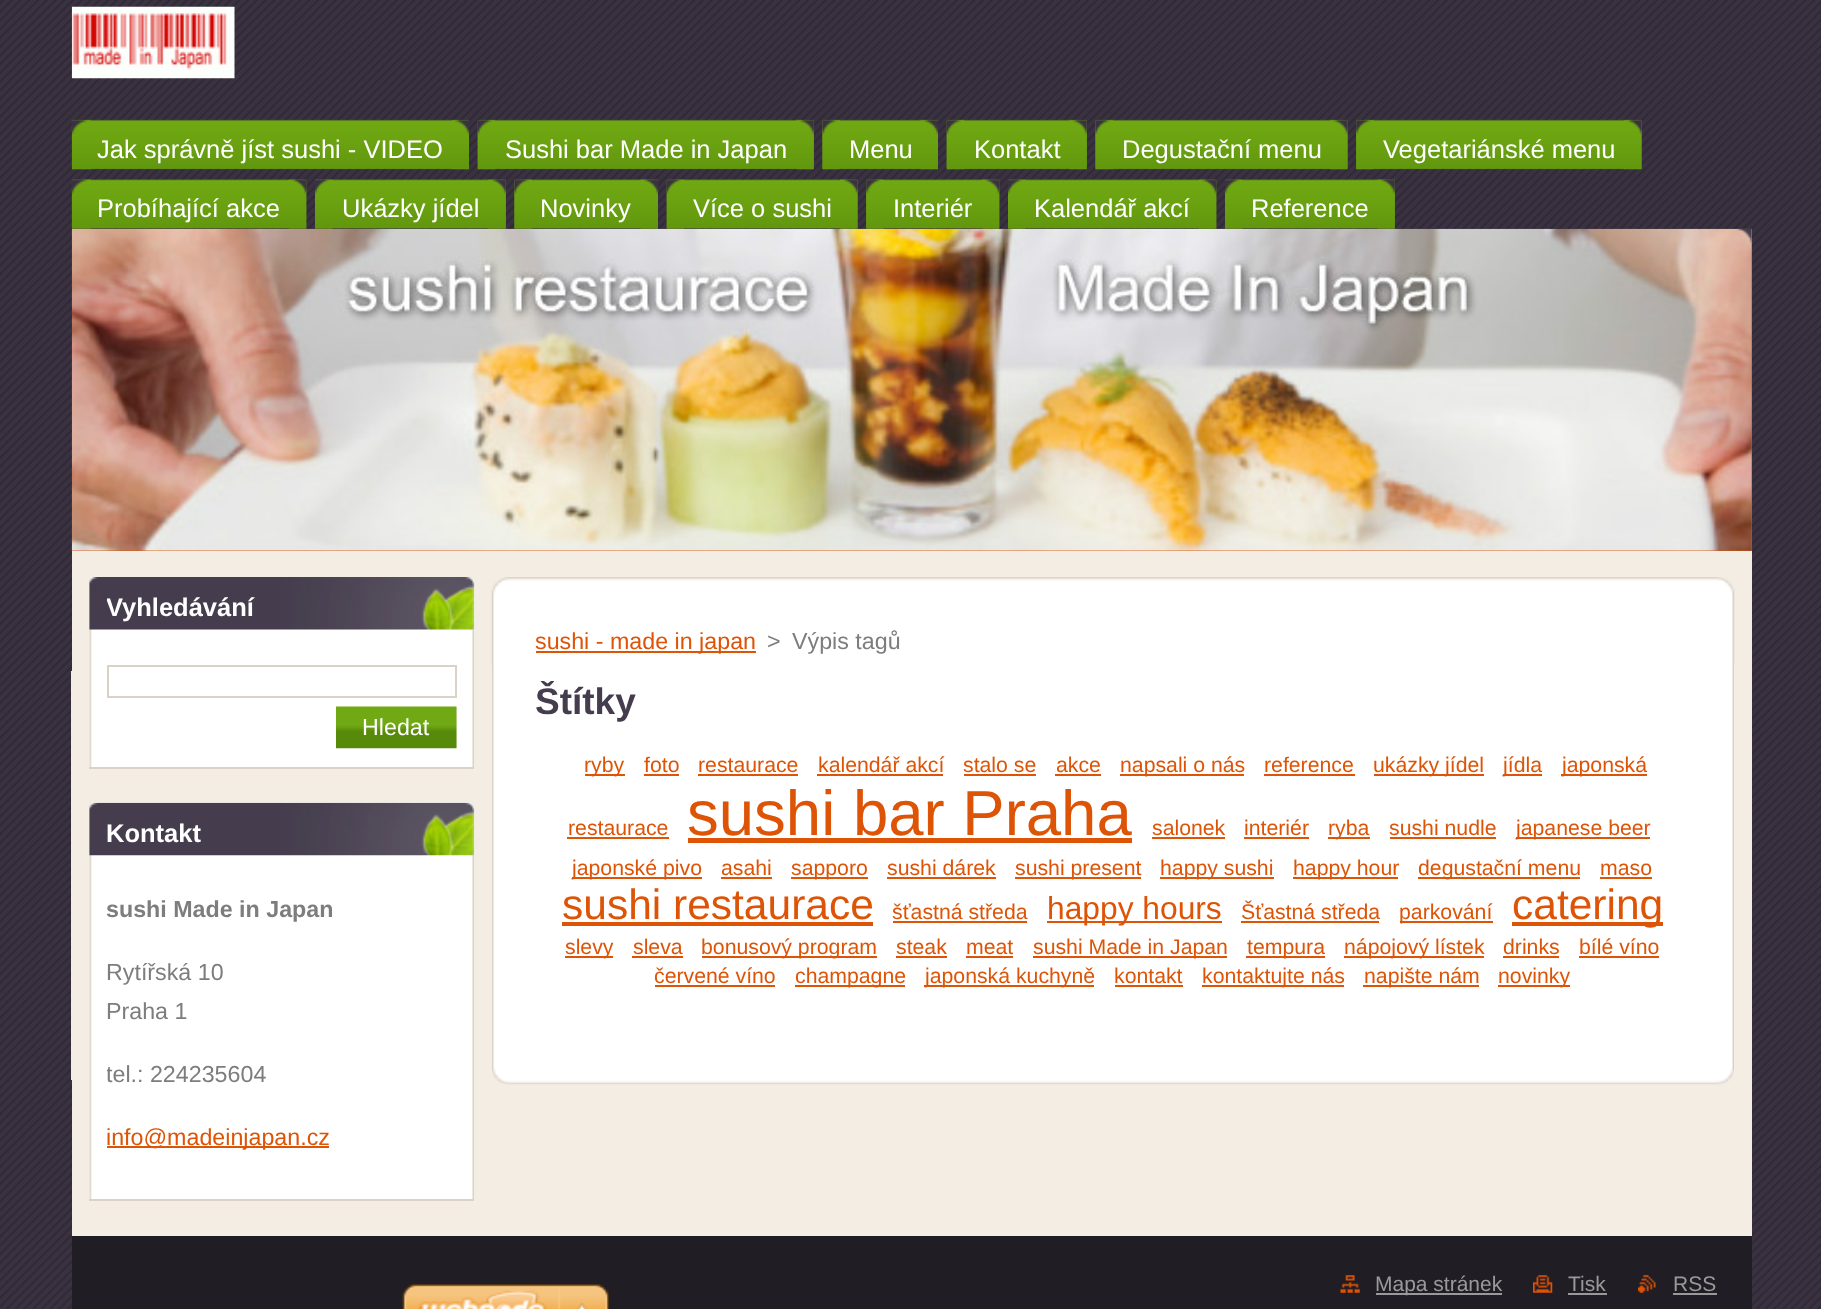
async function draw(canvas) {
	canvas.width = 1821;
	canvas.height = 1309;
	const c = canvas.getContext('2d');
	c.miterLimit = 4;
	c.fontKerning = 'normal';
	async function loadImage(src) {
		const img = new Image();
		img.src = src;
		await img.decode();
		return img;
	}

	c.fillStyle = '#fff';
	c.fillRect(0, 0, 1821, 1309);
	c.drawImage(await loadImage('img1.png'), 0, 0, 1821, 1309);
	c.fillStyle = '#f3ede4';
	c.fillRect(71, 671, 1, 409);
	c.drawImage(await loadImage('img2.png'), 71, 6, 164, 73);
	c.drawImage(await loadImage('img3.png'), 71, 119, 398, 51);
	c.drawImage(await loadImage('img4.png'), 71, 119, 20, 51);
	c.drawImage(await loadImage('img5.png'), 451, 119, 18, 51);
	c.font = '25.5px Liberation Sans';
	c.fillStyle = '#fff';
	c.fillText('Jak správně jíst sushi - VIDEO', 97, 158);
	c.drawImage(await loadImage('img6.png'), 477, 119, 337, 51);
	c.drawImage(await loadImage('img7.png'), 477, 119, 19, 51);
	c.drawImage(await loadImage('img8.png'), 796, 119, 18, 51);
	c.fillText('Sushi bar Made in Japan', 505, 158);
	c.drawImage(await loadImage('img9.png'), 822, 119, 116, 51);
	c.drawImage(await loadImage('img10.png'), 822, 119, 18, 51);
	c.drawImage(await loadImage('img11.png'), 920, 119, 18, 51);
	c.fillText('Menu', 849, 158);
	c.drawImage(await loadImage('img12.png'), 946, 119, 141, 51);
	c.drawImage(await loadImage('img13.png'), 946, 119, 19, 51);
	c.drawImage(await loadImage('img14.png'), 1069, 119, 18, 51);
	c.fillText('Kontakt', 974, 158);
	c.drawImage(await loadImage('img15.png'), 1095, 119, 253, 51);
	c.drawImage(await loadImage('img16.png'), 1095, 119, 18, 51);
	c.drawImage(await loadImage('img17.png'), 1330, 119, 18, 51);
	c.fillText('Degustační menu', 1122, 158);
	c.drawImage(await loadImage('img18.png'), 1356, 119, 286, 51);
	c.drawImage(await loadImage('img19.png'), 1356, 119, 18, 51);
	c.drawImage(await loadImage('img20.png'), 1624, 119, 18, 51);
	c.fillText('Vegetariánské menu', 1383, 158);
	c.drawImage(await loadImage('img21.png'), 71, 179, 236, 50);
	c.drawImage(await loadImage('img22.png'), 71, 179, 20, 50);
	c.drawImage(await loadImage('img23.png'), 288, 179, 19, 50);
	c.fillText('Probíhající akce', 97, 217);
	c.drawImage(await loadImage('img24.png'), 315, 179, 191, 50);
	c.drawImage(await loadImage('img25.png'), 315, 179, 18, 50);
	c.drawImage(await loadImage('img26.png'), 488, 179, 18, 50);
	c.fillText('Ukázky jídel', 342, 217);
	c.drawImage(await loadImage('img27.png'), 514, 179, 144, 50);
	c.drawImage(await loadImage('img28.png'), 514, 179, 18, 50);
	c.drawImage(await loadImage('img29.png'), 640, 179, 18, 50);
	c.fillText('Novinky', 540, 217);
	c.drawImage(await loadImage('img30.png'), 666, 179, 192, 50);
	c.drawImage(await loadImage('img31.png'), 666, 179, 19, 50);
	c.drawImage(await loadImage('img32.png'), 840, 179, 18, 50);
	c.fillText('Více o sushi', 693, 217);
	c.drawImage(await loadImage('img33.png'), 866, 179, 134, 50);
	c.drawImage(await loadImage('img34.png'), 866, 179, 18, 50);
	c.drawImage(await loadImage('img35.png'), 981, 179, 19, 50);
	c.fillText('Interiér', 893, 217);
	c.drawImage(await loadImage('img36.png'), 1008, 179, 209, 50);
	c.drawImage(await loadImage('img37.png'), 1008, 179, 18, 50);
	c.drawImage(await loadImage('img23.png'), 1198, 179, 19, 50);
	c.fillText('Kalendář akcí', 1034, 217);
	c.drawImage(await loadImage('img38.png'), 1225, 179, 170, 50);
	c.drawImage(await loadImage('img39.png'), 1225, 179, 18, 50);
	c.drawImage(await loadImage('img40.png'), 1377, 179, 18, 50);
	c.fillText('Reference', 1251, 217);
	c.fillStyle = '#de5406';
	c.fillRect(72, 229, 1680, 322);
	c.drawImage(await loadImage('img41.png'), 71, 228, 1681, 323);
	c.drawImage(await loadImage('img42.png'), 1737, 229, 15, 15);
	c.fillStyle = '#f3ede4';
	c.fillRect(72, 551, 1680, 685);
	c.fillStyle = '#fff';
	c.fillRect(89, 578, 1, 189);
	c.drawImage(await loadImage('img43.png'), 89, 577, 385, 190);
	c.fillStyle = '#dad2c5';
	c.fillRect(89, 767, 385, 2);
	c.drawImage(await loadImage('img44.png'), 89, 577, 386, 53);
	c.save();
	c.beginPath();
	c.rect(107, 581, 350, 49);
	c.clip();
	c.font = 'bold 25.5px Liberation Sans';
	c.fillStyle = '#fff';
	c.fillText('Vyhledávání', 106, 616);
	c.restore();
	c.strokeStyle = '#dad2c5';
	c.lineWidth = 2;
	c.strokeRect(108, 666, 348, 31);
	c.drawImage(await loadImage('img45.png'), 336, 706, 121, 43);
	c.font = '23.25px Liberation Sans';
	c.fillStyle = '#fff';
	c.fillText('Hledat', 362, 735);
	c.fillRect(89, 803, 1, 396);
	c.drawImage(await loadImage('img46.png'), 89, 802, 385, 397);
	c.fillStyle = '#dad2c5';
	c.fillRect(89, 1199, 385, 2);
	c.drawImage(await loadImage('img47.png'), 89, 802, 386, 54);
	c.font = 'bold 25.5px Liberation Sans';
	c.fillStyle = '#fff';
	c.fillText('Kontakt', 106, 842);
	c.font = 'bold 23.25px Liberation Sans';
	c.fillStyle = '#7d7d7d';
	c.fillText('sushi Made in Japan', 106, 917);
	c.font = '23.25px Liberation Sans';
	c.fillText('Rytířská 10', 106, 980);
	c.fillText('Praha 1', 106, 1019);
	c.save();
	c.beginPath();
	c.rect(107, 891, 350, 290);
	c.clip();
	c.fillText('tel.: 224235604', 106, 1082);
	c.restore();
	c.fillStyle = '#de5406';
	c.fillRect(107, 1146, 222, 2);
	c.fillText('info@madeinjapan.cz', 106, 1145);
	c.drawImage(await loadImage('img48.png'), 491, 577, 1244, 88);
	c.drawImage(await loadImage('img49.png'), 492, 997, 1242, 88);
	c.drawImage(await loadImage('img50.png'), 492, 664, 1242, 333);
	c.fillRect(536, 651, 220, 2);
	c.fillText('sushi - made in japan', 535, 649);
	c.fillStyle = '#7d7d7d';
	c.fillText('>', 767, 649);
	c.fillText('Výpis tagů', 792, 649);
	c.save();
	c.beginPath();
	c.rect(536, 681, 1155, 317);
	c.clip();
	c.font = 'bold 37px Liberation Sans';
	c.fillStyle = '#453d4d';
	c.fillText('Štítky', 535, 714);
	c.restore();
	c.fillStyle = '#de5406';
	c.fillRect(585, 774, 40, 2);
	c.font = '21.25px Liberation Sans';
	c.fillText('ryby', 584, 772);
	c.fillText('foto', 644, 772);
	c.fillRect(644, 774, 35, 2);
	c.fillText('restaurace', 698, 772);
	c.fillRect(698, 774, 100, 2);
	c.fillText('kalendář akcí', 818, 772);
	c.fillRect(817, 774, 126, 2);
	c.fillText('stalo se', 963, 772);
	c.fillRect(964, 774, 72, 2);
	c.fillText('akce', 1056, 772);
	c.fillRect(1055, 774, 46, 2);
	c.fillRect(1120, 774, 124, 2);
	c.fillText('napsali o nás', 1120, 772);
	c.fillText('reference', 1264, 772);
	c.fillRect(1264, 774, 91, 2);
	c.fillRect(1374, 774, 110, 2);
	c.fillText('ukázky jídel', 1373, 772);
	c.fillRect(1503, 774, 39, 2);
	c.fillText('jídla', 1503, 772);
	c.fillRect(1561, 774, 86, 2);
	c.fillText('japonská', 1562, 772);
	c.fillText('restaurace', 568, 835);
	c.fillRect(567, 837, 102, 2);
	c.font = '63.5px Liberation Sans';
	c.fillText('sushi bar Praha', 687, 835);
	c.fillRect(688, 838, 444, 5);
	c.font = '21.25px Liberation Sans';
	c.fillText('salonek', 1152, 835);
	c.fillRect(1152, 837, 73, 2);
	c.fillText('interiér', 1244, 835);
	c.fillRect(1244, 837, 65, 2);
	c.fillRect(1328, 837, 42, 2);
	c.fillText('ryba', 1328, 835);
	c.fillText('sushi nudle', 1389, 835);
	c.fillRect(1390, 837, 106, 2);
	c.fillRect(1516, 837, 134, 2);
	c.fillText('japanese beer', 1516, 835);
	c.fillRect(572, 877, 130, 2);
	c.fillText('japonské pivo', 572, 875);
	c.fillText('asahi', 721, 875);
	c.fillRect(721, 877, 51, 2);
	c.fillRect(791, 877, 77, 2);
	c.fillText('sapporo', 791, 875);
	c.fillText('sushi dárek', 887, 875);
	c.fillRect(887, 877, 109, 2);
	c.fillRect(1015, 877, 126, 2);
	c.fillText('sushi present', 1015, 875);
	c.fillRect(1160, 877, 114, 2);
	c.fillText('happy sushi', 1160, 875);
	c.fillRect(1293, 877, 105, 2);
	c.fillText('happy hour', 1293, 875);
	c.fillRect(1418, 877, 162, 2);
	c.fillText('degustační menu', 1418, 875);
	c.fillText('maso', 1600, 875);
	c.fillRect(1600, 877, 52, 2);
	c.font = '42.5px Liberation Sans';
	c.fillText('sushi restaurace', 562, 919);
	c.fillRect(562, 922, 311, 4);
	c.font = '21.25px Liberation Sans';
	c.fillText('šťastná středa', 892, 919);
	c.fillRect(893, 921, 134, 2);
	c.fillRect(1047, 921, 175, 2);
	c.font = '31.75px Liberation Sans';
	c.fillText('happy hours', 1047, 919);
	c.font = '21.25px Liberation Sans';
	c.fillText('Šťastná středa', 1241, 919);
	c.fillRect(1241, 921, 138, 2);
	c.fillRect(1400, 921, 93, 2);
	c.fillText('parkování', 1399, 919);
	c.fillRect(1512, 922, 151, 4);
	c.font = '42.5px Liberation Sans';
	c.fillText('catering', 1512, 919);
	c.fillRect(565, 956, 48, 2);
	c.font = '21.25px Liberation Sans';
	c.fillText('slevy', 565, 954);
	c.fillText('sleva', 633, 954);
	c.fillRect(632, 956, 51, 2);
	c.fillRect(702, 956, 175, 2);
	c.fillText('bonusový program', 701, 954);
	c.fillText('steak', 896, 954);
	c.fillRect(896, 956, 51, 2);
	c.fillText('meat', 966, 954);
	c.fillRect(966, 956, 47, 2);
	c.fillRect(1033, 956, 194, 2);
	c.fillText('sushi Made in Japan', 1033, 954);
	c.fillRect(1246, 956, 79, 2);
	c.fillText('tempura', 1247, 954);
	c.fillRect(1344, 956, 140, 2);
	c.fillText('nápojový lístek', 1344, 954);
	c.fillText('drinks', 1503, 954);
	c.fillRect(1503, 956, 56, 2);
	c.fillText('bílé víno', 1579, 954);
	c.fillRect(1579, 956, 80, 2);
	c.fillText('červené víno', 654, 983);
	c.fillRect(655, 985, 120, 2);
	c.fillRect(795, 985, 110, 2);
	c.fillText('champagne', 795, 983);
	c.fillRect(924, 985, 170, 2);
	c.fillText('japonská kuchyně', 925, 983);
	c.fillText('kontakt', 1114, 983);
	c.fillRect(1115, 985, 68, 2);
	c.fillRect(1202, 985, 142, 2);
	c.fillText('kontaktujte nás', 1202, 983);
	c.fillRect(1363, 985, 116, 2);
	c.fillText('napište nám', 1364, 983);
	c.fillRect(1498, 985, 72, 2);
	c.fillText('novinky', 1498, 983);
	c.fillStyle = '#211d25';
	c.fillRect(72, 1236, 1680, 73);
	c.drawImage(await loadImage('img51.png'), 1340, 1275, 20, 18);
	c.fillStyle = '#999';
	c.fillRect(1376, 1293, 126, 2);
	c.font = '21px Liberation Sans';
	c.fillText('Mapa stránek', 1375, 1291);
	c.drawImage(await loadImage('img52.png'), 1533, 1275, 20, 18);
	c.fillText('Tisk', 1568, 1291);
	c.fillRect(1568, 1293, 39, 2);
	c.drawImage(await loadImage('img53.png'), 1638, 1275, 18, 18);
	c.fillText('RSS', 1673, 1291);
	c.fillRect(1673, 1293, 44, 2);
	c.drawImage(await loadImage('img54.png'), 402, 1284, 207, 25);
}

draw(document.querySelector('canvas'));
